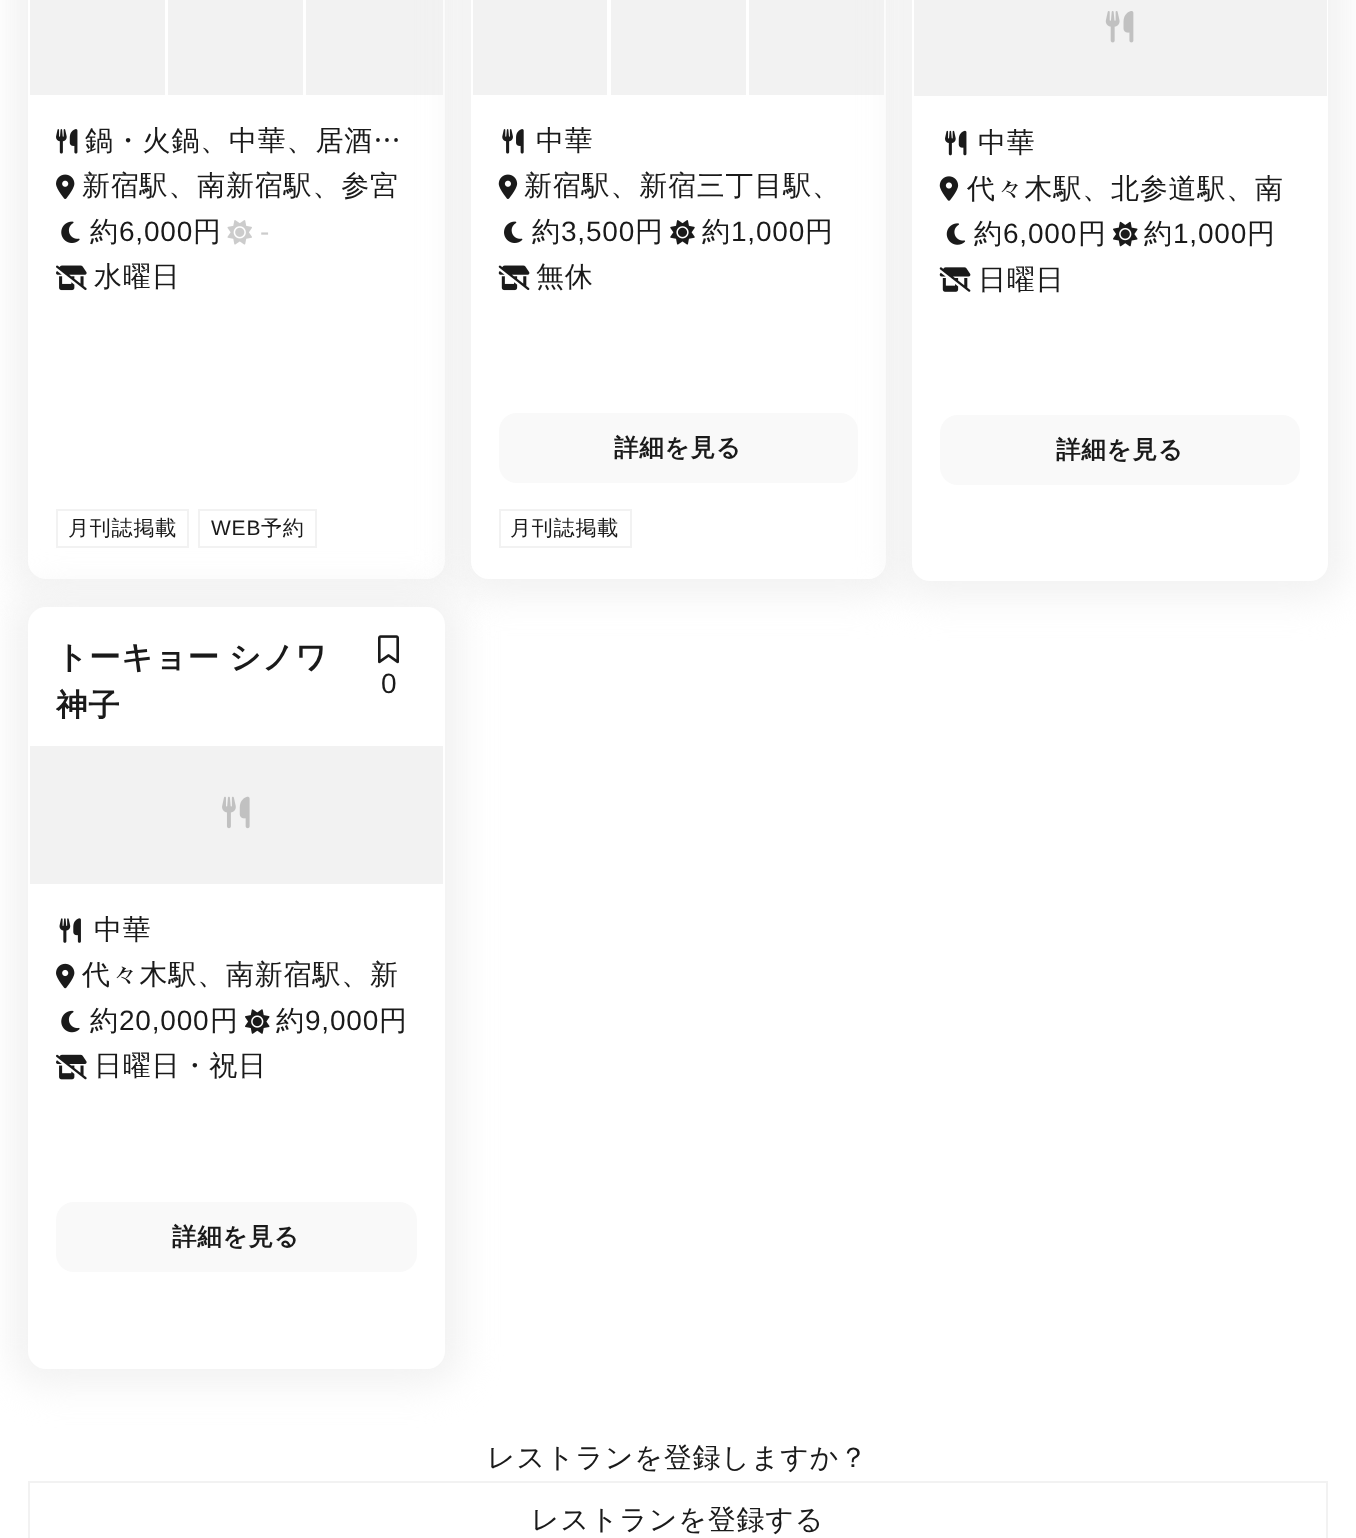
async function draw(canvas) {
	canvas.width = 1356;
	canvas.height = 1538;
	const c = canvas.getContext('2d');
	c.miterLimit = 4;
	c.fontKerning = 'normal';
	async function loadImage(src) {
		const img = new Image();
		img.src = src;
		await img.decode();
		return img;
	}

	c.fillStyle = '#fff';
	c.fillRect(0, 0, 1356, 1538);
	c.fillStyle = '#f2f2f2';
	c.filter = 'blur(17.5px)';
	c.beginPath();
	c.roundRect(11, -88, 451, 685, 35);
	c.fill();
	c.filter = 'none';
	c.fillStyle = '#fff';
	c.beginPath();
	c.roundRect(28, -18, 417, 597, 18);
	c.fill();
	for (const [x, y, w, h, color] of [
		[30, 0, 135, 95, '#f2f2f2'],
		[168, 0, 135, 95, '#f2f2f2'],
		[306, 0, 137, 95, '#f2f2f2'],
	]) {
		c.fillStyle = color;
		c.fillRect(x, y, w, h);
	}
	c.drawImage(await loadImage('img1.png'), 56, 129, 22, 25);
	c.letterSpacing = '0.8px';
	c.font = '500 28px WenQuanYi Zen Hei';
	c.fillStyle = '#1a1a1a';
	c.fillText('鍋・火鍋、中華、居酒…', 85, 150);
	c.drawImage(await loadImage('img2.png'), 56, 174, 19, 25);
	c.fillText('新宿駅、南新宿駅、参宮', 82, 195);
	c.drawImage(await loadImage('img3.png'), 61, 221, 19, 22);
	c.fillText('約', 90, 241);
	c.font = '28px Liberation Sans';
	c.fillText('6,000', 119, 241);
	c.font = '500 28px WenQuanYi Zen Hei';
	c.fillText('円', 193, 241);
	c.drawImage(await loadImage('img4.png'), 227, 220, 25, 25);
	c.font = '28px Liberation Sans';
	c.fillStyle = '#ccc';
	c.fillText('-', 260, 241);
	c.drawImage(await loadImage('img5.png'), 56, 265, 31, 26);
	c.font = '500 28px WenQuanYi Zen Hei';
	c.fillStyle = '#1a1a1a';
	c.fillText('水曜日', 94, 286);
	c.strokeStyle = '#f2f2f2';
	c.lineWidth = 2;
	c.strokeRect(57, 510, 131, 37);
	c.font = '500 21px WenQuanYi Zen Hei';
	c.fillText('月刊誌掲載', 68, 535);
	c.strokeRect(199, 510, 117, 37);
	c.font = '21px Liberation Sans';
	c.fillText('WEB', 211, 535);
	c.font = '500 21px WenQuanYi Zen Hei';
	c.fillText('予約', 261, 535);
	c.fillStyle = '#f2f2f2';
	c.filter = 'blur(17.5px)';
	c.beginPath();
	c.roundRect(453, -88, 450, 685, 35);
	c.fill();
	c.filter = 'none';
	c.fillStyle = '#fff';
	c.beginPath();
	c.roundRect(472, -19, 413, 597, 17);
	c.fill();
	c.strokeStyle = '#fff';
	c.stroke();
	for (const [x, y, w, h, color] of [
		[473, 0, 134, 95, '#f2f2f2'],
		[611, 0, 135, 95, '#f2f2f2'],
		[749, 0, 135, 95, '#f2f2f2'],
	]) {
		c.fillStyle = color;
		c.fillRect(x, y, w, h);
	}
	c.drawImage(await loadImage('img6.png'), 502, 129, 22, 25);
	c.font = '500 28px WenQuanYi Zen Hei';
	c.fillStyle = '#1a1a1a';
	c.fillText('中華', 536, 150);
	c.drawImage(await loadImage('img7.png'), 498, 174, 20, 25);
	c.fillText('新宿駅、新宿三丁目駅、', 524, 195);
	c.drawImage(await loadImage('img8.png'), 504, 221, 19, 22);
	c.fillText('約', 532, 241);
	c.font = '28px Liberation Sans';
	c.fillText('3,500', 561, 241);
	c.font = '500 28px WenQuanYi Zen Hei';
	c.fillText('円', 635, 241);
	c.drawImage(await loadImage('img9.png'), 670, 220, 25, 25);
	c.fillText('約', 702, 241);
	c.font = '28px Liberation Sans';
	c.fillText('1,000', 731, 241);
	c.font = '500 28px WenQuanYi Zen Hei';
	c.fillText('円', 805, 241);
	c.drawImage(await loadImage('img10.png'), 498, 265, 32, 26);
	c.fillText('無休', 536, 286);
	c.fillStyle = '#f2f2f2';
	c.filter = 'blur(17.5px)';
	c.beginPath();
	c.roundRect(894, -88, 452, 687, 35);
	c.fill();
	c.filter = 'none';
	c.fillStyle = '#f9f9f9';
	c.beginPath();
	c.roundRect(499, 413, 359, 70, 18);
	c.fill();
	c.font = 'bold 24.5px WenQuanYi Zen Hei';
	c.fillStyle = '#1a1a1a';
	c.fillText('詳細を見る', 614, 456);
	c.strokeStyle = '#f2f2f2';
	c.strokeRect(500, 510, 131, 37);
	c.font = '500 21px WenQuanYi Zen Hei';
	c.fillText('月刊誌掲載', 510, 535);
	c.fillStyle = '#fff';
	c.beginPath();
	c.roundRect(912, -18, 416, 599, 18);
	c.fill();
	c.fillStyle = '#f2f2f2';
	c.fillRect(914, 0, 413, 96);
	c.drawImage(await loadImage('img11.png'), 1105, 11, 29, 32);
	c.drawImage(await loadImage('img12.png'), 945, 130, 22, 26);
	c.font = '500 28px WenQuanYi Zen Hei';
	c.fillStyle = '#1a1a1a';
	c.fillText('中華', 978, 152);
	c.drawImage(await loadImage('img13.png'), 939, 176, 20, 25);
	c.fillText('代々木駅、北参道駅、南', 967, 198);
	c.drawImage(await loadImage('img14.png'), 946, 223, 20, 22);
	c.fillText('約', 974, 243);
	c.font = '28px Liberation Sans';
	c.fillText('6,000', 1003, 243);
	c.font = '500 28px WenQuanYi Zen Hei';
	c.fillText('円', 1078, 243);
	c.drawImage(await loadImage('img15.png'), 1113, 221, 25, 26);
	c.fillText('約', 1144, 243);
	c.font = '28px Liberation Sans';
	c.fillText('1,000', 1173, 243);
	c.font = '500 28px WenQuanYi Zen Hei';
	c.fillText('円', 1247, 243);
	c.drawImage(await loadImage('img16.png'), 939, 267, 32, 25);
	c.fillText('日曜日', 978, 289);
	c.fillStyle = '#f9f9f9';
	c.beginPath();
	c.roundRect(940, 415, 360, 70, 18);
	c.fill();
	c.font = 'bold 24.5px WenQuanYi Zen Hei';
	c.fillStyle = '#1a1a1a';
	c.fillText('詳細を見る', 1056, 458);
	c.fillStyle = '#f2f2f2';
	c.filter = 'blur(17.5px)';
	c.beginPath();
	c.roundRect(11, 590, 451, 796, 35);
	c.fill();
	c.filter = 'none';
	c.fillStyle = '#fff';
	c.beginPath();
	c.roundRect(28, 607, 417, 762, 18);
	c.fill();
	c.wordSpacing = '-1px';
	c.font = 'bold 31.5px WenQuanYi Zen Hei';
	c.fillStyle = '#1a1a1a';
	c.fillText('トーキョー シノワ', 56, 668);
	c.save();
	c.beginPath();
	c.rect(56, 635, 291, 84);
	c.clip();
	c.wordSpacing = '0px';
	c.fillText('神子', 56, 716);
	c.restore();
	c.drawImage(await loadImage('img17.png'), 378, 635, 21, 29);
	c.wordSpacing = '0px';
	c.font = '28px Liberation Sans';
	c.fillText('0', 381, 693);
	c.fillStyle = '#f2f2f2';
	c.fillRect(30, 746, 413, 138);
	c.drawImage(await loadImage('img18.png'), 222, 796, 28, 33);
	c.drawImage(await loadImage('img19.png'), 59, 918, 22, 25);
	c.font = '500 28px WenQuanYi Zen Hei';
	c.fillStyle = '#1a1a1a';
	c.fillText('中華', 94, 939);
	c.drawImage(await loadImage('img20.png'), 56, 963, 19, 26);
	c.fillText('代々木駅、南新宿駅、新', 82, 984);
	c.drawImage(await loadImage('img21.png'), 61, 1010, 19, 23);
	c.fillText('約', 90, 1030);
	c.font = '28px Liberation Sans';
	c.fillText('20,000', 119, 1030);
	c.font = '500 28px WenQuanYi Zen Hei';
	c.fillText('円', 210, 1030);
	c.drawImage(await loadImage('img22.png'), 245, 1009, 25, 25);
	c.fillText('約', 276, 1030);
	c.font = '28px Liberation Sans';
	c.fillText('9,000', 305, 1030);
	c.font = '500 28px WenQuanYi Zen Hei';
	c.fillText('円', 379, 1030);
	c.drawImage(await loadImage('img23.png'), 56, 1054, 31, 26);
	c.fillText('日曜日・祝日', 94, 1075);
	c.fillStyle = '#f9f9f9';
	c.beginPath();
	c.roundRect(56, 1202, 361, 70, 18);
	c.fill();
	c.font = 'bold 24.5px WenQuanYi Zen Hei';
	c.fillStyle = '#1a1a1a';
	c.fillText('詳細を見る', 172, 1245);
	c.font = '500 28px WenQuanYi Zen Hei';
	c.fillText('レストランを登録しますか？', 487, 1467);
	c.strokeRect(29, 1482, 1298, 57);
	c.fillText('レストランを登録する', 531, 1529);
}

draw(document.querySelector('canvas'));
